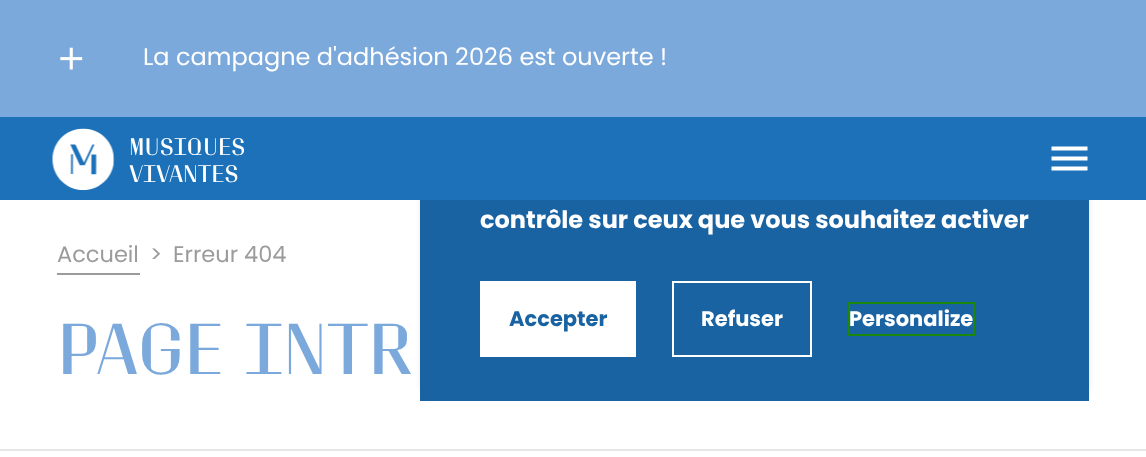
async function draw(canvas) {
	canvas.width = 1146;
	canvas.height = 457;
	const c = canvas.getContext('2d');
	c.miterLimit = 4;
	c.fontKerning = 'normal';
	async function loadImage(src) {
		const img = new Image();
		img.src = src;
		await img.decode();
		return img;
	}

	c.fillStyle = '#fff';
	c.fillRect(0, 0, 1146, 457);
	c.fillStyle = '#0000004d';
	c.filter = 'blur(5px)';
	c.beginPath();
	c.rect(425, 126, 660, 264);
	c.fill();
	c.filter = 'none';
	c.fillStyle = '#7ca9db';
	c.fillRect(0, 0, 1146, 117);
	c.drawImage(await loadImage('img1.png'), 60, 47, 23, 23);
	c.font = '24px Poppins';
	c.fillStyle = '#fff';
	c.fillText('La campagne d\'adhésion 2026 est ouverte !', 143, 65);
	c.fillStyle = '#1d71b8';
	c.fillRect(0, 117, 1146, 83);
	c.drawImage(await loadImage('img2.png'), 52, 128, 63, 63);
	c.font = '24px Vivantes';
	c.fillStyle = '#fff';
	c.fillText('Musiques', 129, 155);
	c.fillText('Vivantes', 129, 182);
	c.beginPath();
	c.moveTo(1051.5, 146.5);
	c.lineTo(1087.5, 146.5);
	c.lineTo(1087.5, 150.5);
	c.lineTo(1051.5, 150.5);
	c.closePath();
	c.moveTo(1051.5, 160.5);
	c.lineTo(1051.5, 156.5);
	c.lineTo(1087.5, 156.5);
	c.lineTo(1087.5, 160.5);
	c.closePath();
	c.moveTo(1051.5, 170.5);
	c.lineTo(1051.5, 166.5);
	c.lineTo(1087.5, 166.5);
	c.lineTo(1087.5, 170.5);
	c.closePath();
	c.fill();
	c.fillStyle = '#e6e6e6';
	c.fillRect(0, 449, 1146, 2);
	c.font = '22.5px Poppins';
	c.fillStyle = '#9b9b9b';
	c.fillText('Accueil', 57, 262);
	c.fillRect(57, 273, 83, 2);
	c.fillText('>', 150, 262);
	c.fillText('Erreur 404', 173, 262);
	c.font = '72px Vivantes';
	c.fillStyle = '#7ca9db';
	c.fillText('Page intr', 57, 374);
	c.fillStyle = '#1a63a2';
	c.fillRect(420, 200, 669, 201);
	c.font = 'bold 24px Poppins';
	c.fillStyle = '#fff';
	c.fillText('contrôle sur ceux que vous souhaitez activer', 480, 228);
	c.fillRect(480, 281, 156, 76);
	c.font = 'bold 21px Poppins';
	c.fillStyle = '#1a63a2';
	c.fillText('Accepter', 509, 326);
	c.strokeStyle = '#fff';
	c.lineWidth = 2;
	c.strokeRect(673, 282, 138, 74);
	c.fillStyle = '#fff';
	c.fillText('Refuser', 701, 326);
	c.strokeStyle = '#1b870b';
	c.strokeRect(849, 303, 125, 32);
	c.fillText('Personalize', 849, 326);
}

draw(document.querySelector('canvas'));
